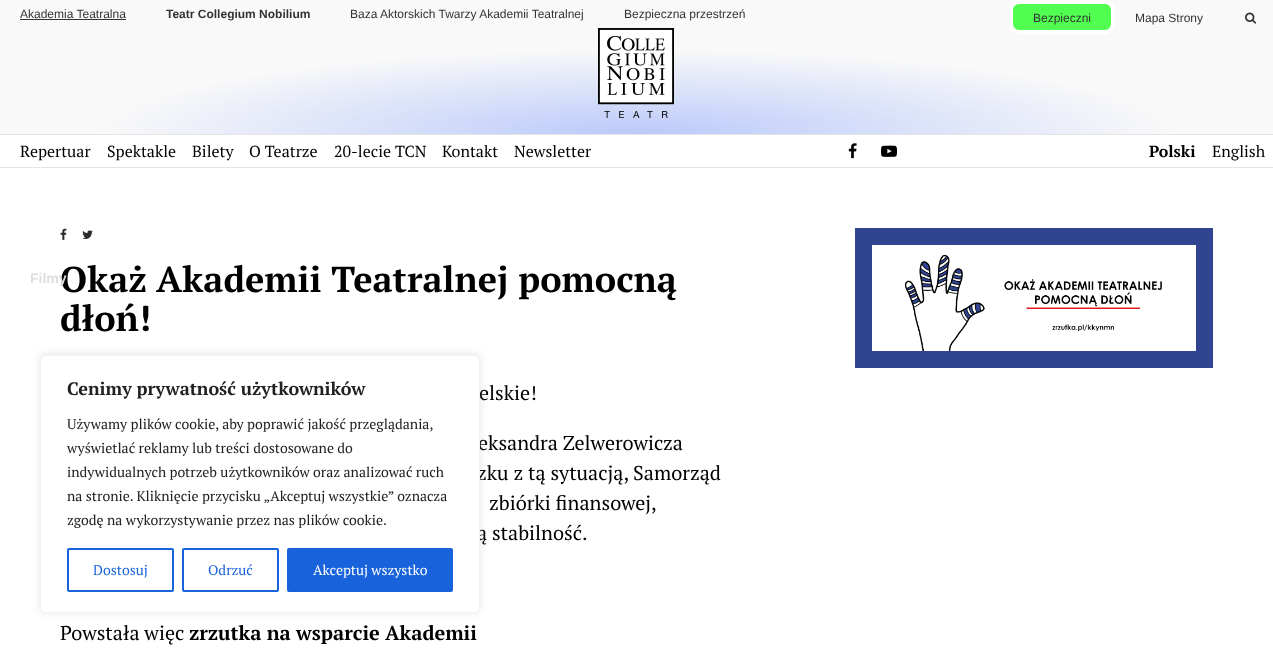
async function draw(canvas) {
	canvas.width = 1273;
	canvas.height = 653;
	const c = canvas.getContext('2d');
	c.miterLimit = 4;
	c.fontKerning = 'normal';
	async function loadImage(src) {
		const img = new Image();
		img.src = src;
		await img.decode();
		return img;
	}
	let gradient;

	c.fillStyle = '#fff';
	c.fillRect(0, 0, 1273, 653);
	c.fillStyle = '#f9f9f9';
	c.fillRect(0, 0, 1273, 34);
	c.font = '12px Liberation Sans';
	c.fillStyle = '#333';
	c.fillText('Akademia Teatralna', 20, 18);
	c.fillRect(20, 19, 106, 1);
	c.font = 'bold 12px Liberation Sans';
	c.fillText('Teatr Collegium Nobilium', 166, 18);
	c.font = '12px Liberation Sans';
	c.fillText('Baza Aktorskich Twarzy Akademii Teatralnej', 350, 18);
	c.fillText('Bezpieczna przestrzeń', 624, 18);
	c.fillStyle = '#50ff50';
	c.beginPath();
	c.roundRect(1011, 2, 102, 30, 8);
	c.fill();
	c.strokeStyle = '#fff';
	c.lineWidth = 4;
	c.stroke();
	c.fillStyle = '#333';
	c.fillText('Bezpieczni', 1033, 22);
	c.fillText('Mapa Strony', 1135, 22);
	c.drawImage(await loadImage('img1.png'), 1245, 12, 12, 12);
	gradient = c.createRadialGradient(637, 855.32, 0, 637, 855.32, 900);
	gradient.addColorStop(0, '#bac9fa');
	gradient.addColorStop(0.6, '#f9f9f9');
	c.fillStyle = gradient;
	c.beginPath();
	c.rect(0, 34, 1273, 100);
	c.save();
	c.clip();
	c.scale(1, 141 / 900);
	c.fillRect(0, 0, 1273, 4169);
	c.restore();
	c.fillStyle = '#e5e5e5';
	c.fillRect(0, 134, 1273, 1);
	c.drawImage(await loadImage('img2.png'), 598, 28, 76, 90);
	c.fillRect(0, 167, 1273, 1);
	c.font = '16px PT Serif';
	c.fillStyle = '#000';
	c.fillText('Repertuar', 20, 157);
	c.fillText('20-lecie TCN', 334, 157);
	c.font = 'bold 36px PT Serif';
	c.fillText('Okaż Akademii Teatralnej pomocną', 60, 292);
	c.font = 'bold 14px Liberation Sans';
	c.fillStyle = '#dedede';
	c.fillText('Filmy', 30, 283);
	c.font = '16px PT Serif';
	c.fillStyle = '#000';
	for (const [text, x, y] of [
		['Spektakle', 107, 157],
		['Bilety', 192, 157],
		['O Teatrze', 249, 157],
		['Kontakt', 442, 157],
		['Newsletter', 514, 157],
	]) {
		c.fillText(text, x, y);
	}
	c.drawImage(await loadImage('img3.png'), 848, 143, 9, 16);
	c.drawImage(await loadImage('img4.png'), 881, 145, 16, 12);
	c.font = 'bold 16px PT Serif';
	c.fillText('Polski', 1149, 157);
	c.font = '16px PT Serif';
	c.fillText('English', 1212, 157);
	c.drawImage(await loadImage('img5.png'), 60, 228, 7, 12);
	c.drawImage(await loadImage('img6.png'), 82, 230, 11, 9);
	c.font = 'bold 36px PT Serif';
	c.fillText('dłoń!', 60, 331);
	c.font = '20px PT Serif';
	for (const [text, x, y] of [
		['elskie!', 479, 400],
		['eksandra Zelwerowicza', 478, 450],
		['zku z tą sytuacją, Samorząd', 477, 480],
		['zbiórki finansowej,', 489, 510],
		['ą stabilność.', 477, 540],
		['Powstała więc', 60, 640],
	]) {
		c.fillText(text, x, y);
	}
	c.font = 'bold 20px PT Serif';
	c.fillText('zrzutka na wsparcie Akademii', 189, 640);
	c.drawImage(await loadImage('img7.png'), 855, 228, 358, 140);
	c.fillStyle = '#acabab4d';
	c.filter = 'blur(5px)';
	c.beginPath();
	c.roundRect(40, 354, 440, 258, 6);
	c.fill();
	c.filter = 'none';
	c.fillStyle = '#fff';
	c.beginPath();
	c.roundRect(40.5, 355.5, 439, 257, 5.5);
	c.fill();
	c.strokeStyle = '#f4f4f4';
	c.lineWidth = 1;
	c.stroke();
	c.font = 'bold 18px PT Serif';
	c.fillStyle = '#212121';
	c.fillText('Cenimy prywatność użytkowników', 67, 395);
	c.font = '14px PT Serif';
	for (const [text, x, y] of [
		['Używamy plików cookie, aby poprawić jakość przeglądania,', 67, 429],
		['wyświetlać reklamy lub treści dostosowane do', 67, 453],
		['indywidualnych potrzeb użytkowników oraz analizować ruch', 67, 477],
		['na stronie. Kliknięcie przycisku „Akceptuj wszystkie” oznacza', 67, 501],
		['zgodę na wykorzystywanie przez nas plików cookie.', 67, 525],
	]) {
		c.fillText(text, x, y);
	}
	c.beginPath();
	c.roundRect(68, 549, 105, 42, 1);
	c.strokeStyle = '#1863dc';
	c.lineWidth = 2;
	c.stroke();
	c.fillStyle = '#1863dc';
	c.fillText('Dostosuj', 93, 575);
	c.beginPath();
	c.roundRect(183, 549, 95, 42, 1);
	c.stroke();
	c.fillText('Odrzuć', 208, 575);
	c.beginPath();
	c.roundRect(288, 549, 164, 42, 1);
	c.fill();
	c.stroke();
	c.fillStyle = '#fff';
	c.fillText('Akceptuj wszystko', 313, 575);
}

draw(document.querySelector('canvas'));
